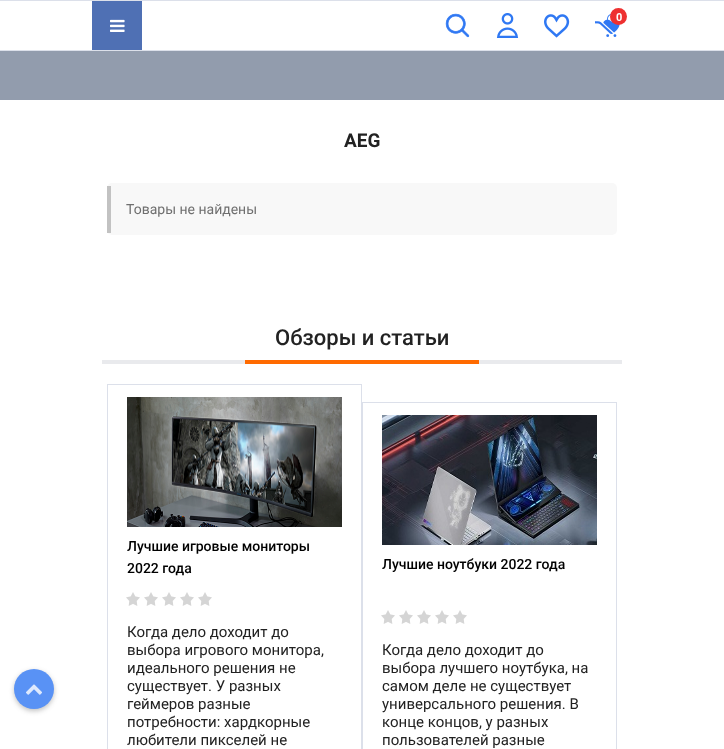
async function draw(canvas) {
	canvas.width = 724;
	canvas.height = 749;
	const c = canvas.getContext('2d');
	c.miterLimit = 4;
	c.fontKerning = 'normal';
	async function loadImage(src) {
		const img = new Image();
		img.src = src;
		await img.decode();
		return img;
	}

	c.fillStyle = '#fff';
	c.fillRect(0, 0, 724, 749);
	for (const [x, y, w, h, color] of [
		[0, 0, 724, 1, '#dce0ea'],
		[0, 50, 724, 1, '#dce0ea'],
		[92, 1, 50, 49, '#4f70b4'],
	]) {
		c.fillStyle = color;
		c.fillRect(x, y, w, h);
	}
	c.drawImage(await loadImage('img1.png'), 110, 19, 15, 13);
	c.drawImage(await loadImage('img2.png'), 445, 13, 25, 25);
	c.drawImage(await loadImage('img3.png'), 496, 13, 23, 25);
	c.drawImage(await loadImage('img4.png'), 544, 14, 26, 24);
	c.drawImage(await loadImage('img5.png'), 595, 14, 25, 23);
	c.fillStyle = '#ee3030';
	c.beginPath();
	c.arc(618.5, 16.5, 8.5, 0, 2 * Math.PI);
	c.fill();
	c.font = 'bold 11px Roboto';
	c.fillStyle = '#fff';
	c.fillText('0', 616, 21);
	c.fillStyle = '#929cad';
	c.fillRect(0, 51, 724, 49);
	c.font = 'bold 19px Roboto';
	c.fillStyle = '#222';
	c.fillText('AEG', 344, 147);
	c.fillStyle = '#f8f8f8';
	c.beginPath();
	c.roundRect(107, 183, 510, 52, 5);
	c.fill();
	c.fillStyle = '#c2c2c2';
	c.fillRect(107, 186, 4, 47);
	c.font = '14px Roboto';
	c.fillStyle = '#6f6f6f';
	c.fillText('Товары не найдены', 126, 214);
	c.fillStyle = '#3333334d';
	c.filter = 'blur(2.5px)';
	c.beginPath();
	c.roundRect(14, 671, 40, 40, 20);
	c.fill();
	c.filter = 'none';
	c.fillStyle = '#5992f5';
	c.beginPath();
	c.arc(34, 689, 20, 0, 2 * Math.PI);
	c.fill();
	c.drawImage(await loadImage('img6.png'), 26, 684, 16, 11);
	c.fillStyle = '#e9eaed';
	c.fillRect(102, 360, 520, 4);
	c.font = '500 22px Roboto';
	c.fillStyle = '#222';
	c.fillText('Обзоры и статьи', 275, 345);
	c.fillStyle = '#ff6a00';
	c.fillRect(245, 360, 234, 4);
	c.strokeStyle = '#dce0ea';
	c.strokeRect(107.5, 384.5, 254, 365);
	c.drawImage(await loadImage('img7.png'), 127, 397, 215, 130);
	c.font = '500 14px Roboto';
	c.fillStyle = '#000';
	c.fillText('Лучшие игровые мониторы', 127, 551);
	c.fillText('2022 года', 127, 573);
	c.drawImage(await loadImage('img8.png'), 126, 592, 86, 14);
	c.font = '15px Roboto';
	c.fillStyle = '#222';
	for (const [text, x, y] of [
		['Когда дело доходит до', 127, 637],
		['выбора игрового монитора,', 127, 655],
		['идеального решения не', 127, 673],
		['существует. У разных', 127, 691],
		['геймеров разные', 127, 709],
		['потребности: хардкорные', 127, 727],
		['любители пикселей не', 127, 745],
	]) {
		c.fillText(text, x, y);
	}
	c.strokeRect(362.5, 402.5, 254, 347);
	c.drawImage(await loadImage('img9.png'), 382, 415, 215, 130);
	c.font = '500 14px Roboto';
	c.fillStyle = '#000';
	c.fillText('Лучшие ноутбуки 2022 года', 382, 569);
	c.drawImage(await loadImage('img8.png'), 381, 610, 86, 14);
	c.font = '15px Roboto';
	c.fillStyle = '#222';
	for (const [text, x, y] of [
		['Когда дело доходит до', 382, 655],
		['выбора лучшего ноутбука, на', 382, 673],
		['самом деле не существует', 382, 691],
		['универсального решения. В', 382, 709],
		['конце концов, у разных', 382, 727],
		['пользователей разные', 382, 745],
	]) {
		c.fillText(text, x, y);
	}
}

draw(document.querySelector('canvas'));
